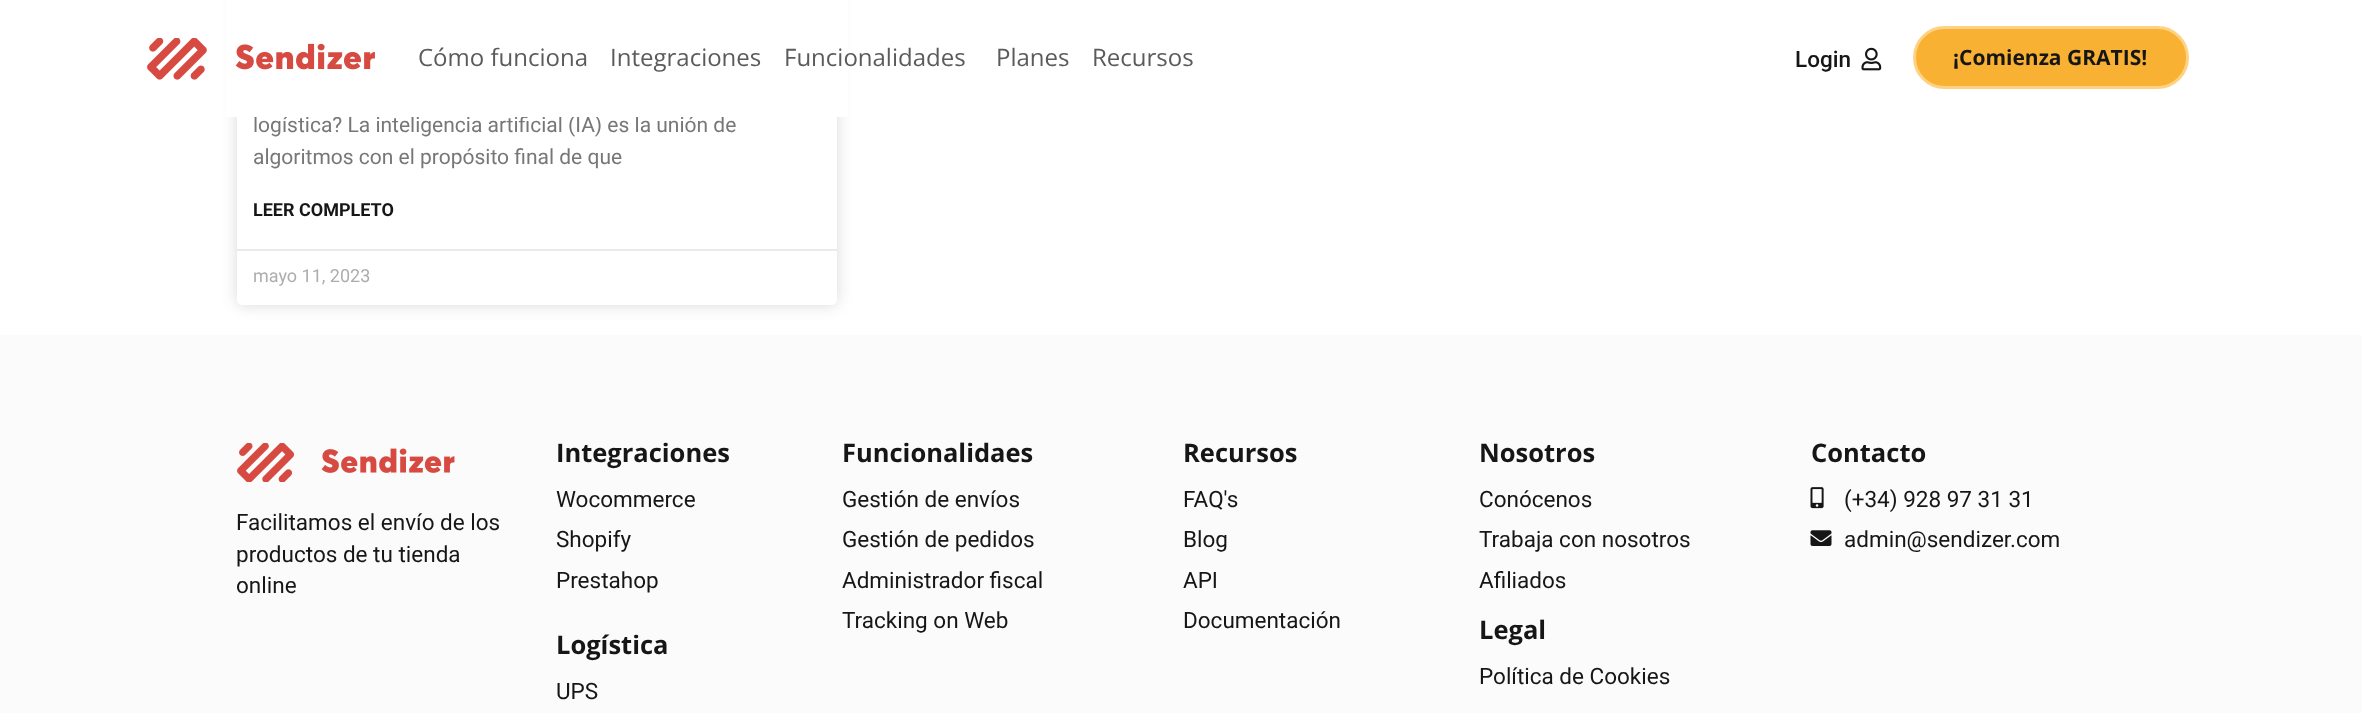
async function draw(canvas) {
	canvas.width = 2362;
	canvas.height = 713;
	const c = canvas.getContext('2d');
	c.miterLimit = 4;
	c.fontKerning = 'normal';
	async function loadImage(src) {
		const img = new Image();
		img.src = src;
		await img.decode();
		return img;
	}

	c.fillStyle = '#fff';
	c.fillRect(0, 0, 2362, 713);
	c.fillStyle = '#00000026';
	c.filter = 'blur(7.5px)';
	c.beginPath();
	c.roundRect(237, -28, 600, 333, 5);
	c.fill();
	c.filter = 'none';
	c.fillStyle = '#fff';
	c.beginPath();
	c.roundRect(237, -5, 600, 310, 5);
	c.fill();
	c.font = '21px Roboto';
	c.fillStyle = '#777';
	c.fillText('logística? La inteligencia artificial (IA) es la unión de', 253, 132);
	c.fillStyle = '#fff';
	c.fillRect(226, 0, 622, 117);
	c.drawImage(await loadImage('img1.png'), 147, 38, 228, 42);
	c.font = '24px Open Sans';
	c.fillStyle = '#5b5b5b';
	for (const [text, x, y] of [
		['Cómo funciona', 418, 66],
		['Integraciones', 610, 66],
		['Funcionalidades', 784, 66],
		['Planes', 996, 66],
		['Recursos', 1092, 66],
	]) {
		c.fillText(text, x, y);
	}
	c.font = '500 22.5px Roboto';
	c.fillStyle = '#161616';
	c.fillText('Login', 1795, 67);
	c.drawImage(await loadImage('img2.png'), 1861, 47, 21, 24);
	c.fillStyle = '#f8b133';
	c.beginPath();
	c.roundRect(1914.5, 27.5, 273, 60, 30);
	c.fill();
	c.strokeStyle = '#ffd283';
	c.lineWidth = 3;
	c.stroke();
	c.font = 'bold 21px Open Sans';
	c.fillStyle = '#161616';
	c.fillText('¡Comienza GRATIS!', 1953, 65);
	c.font = '21px Roboto';
	c.fillStyle = '#777';
	c.fillText('algoritmos con el propósito final de que', 253, 164);
	c.font = 'bold 18px Roboto';
	c.fillStyle = '#161616';
	c.fillText('LEER COMPLETO', 253, 216);
	c.fillStyle = '#eaeaea';
	c.fillRect(237, 249, 600, 2);
	c.font = '18px Roboto';
	c.fillStyle = '#adadad';
	c.fillText('mayo 11, 2023', 253, 282);
	c.fillStyle = '#fbfbfb';
	c.fillRect(0, 335, 2362, 378);
	c.drawImage(await loadImage('img3.png'), 237, 443, 218, 39);
	c.font = '22.5px Roboto';
	c.fillStyle = '#161616';
	for (const [text, x, y] of [
		['Facilitamos el envío de los', 236, 530],
		['productos de tu tienda', 236, 562],
		['online', 236, 593],
	]) {
		c.fillText(text, x, y);
	}
	c.font = 'bold 25.5px Open Sans';
	c.fillText('Integraciones', 556, 462);
	c.font = '22.5px Roboto';
	for (const [text, x, y] of [
		['Wocommerce', 556, 507],
		['Shopify', 556, 547],
		['Prestahop', 556, 588],
	]) {
		c.fillText(text, x, y);
	}
	c.font = 'bold 25.5px Open Sans';
	c.fillText('Logística', 556, 654);
	c.font = '22.5px Roboto';
	c.fillText('UPS', 556, 699);
	c.font = 'bold 25.5px Open Sans';
	c.fillText('Funcionalidaes', 842, 462);
	c.font = '22.5px Roboto';
	for (const [text, x, y] of [
		['Gestión de envíos', 842, 507],
		['Gestión de pedidos', 842, 547],
		['Administrador fiscal', 842, 588],
		['Tracking on Web', 842, 628],
	]) {
		c.fillText(text, x, y);
	}
	c.font = 'bold 25.5px Open Sans';
	c.fillText('Recursos', 1183, 462);
	c.font = '22.5px Roboto';
	for (const [text, x, y] of [
		['FAQ\'s', 1183, 507],
		['Blog', 1183, 547],
		['API', 1183, 588],
		['Documentación', 1183, 628],
	]) {
		c.fillText(text, x, y);
	}
	c.font = 'bold 25.5px Open Sans';
	c.fillText('Nosotros', 1479, 462);
	c.font = '22.5px Roboto';
	for (const [text, x, y] of [
		['Conócenos', 1479, 507],
		['Trabaja con nosotros', 1479, 547],
		['Afiliados', 1479, 588],
	]) {
		c.fillText(text, x, y);
	}
	c.font = 'bold 25.5px Open Sans';
	c.fillText('Legal', 1479, 639);
	c.font = '22.5px Roboto';
	c.fillText('Política de Cookies', 1479, 684);
	c.font = 'bold 25.5px Open Sans';
	c.fillText('Contacto', 1811, 462);
	c.drawImage(await loadImage('img4.png'), 1810, 487, 14, 22);
	c.font = '22.5px Roboto';
	c.fillText('(+34) 928 97 31 31', 1844, 507);
	c.drawImage(await loadImage('img5.png'), 1810, 530, 22, 16);
	c.fillText('admin@sendizer.com', 1844, 547);
}

draw(document.querySelector('canvas'));
